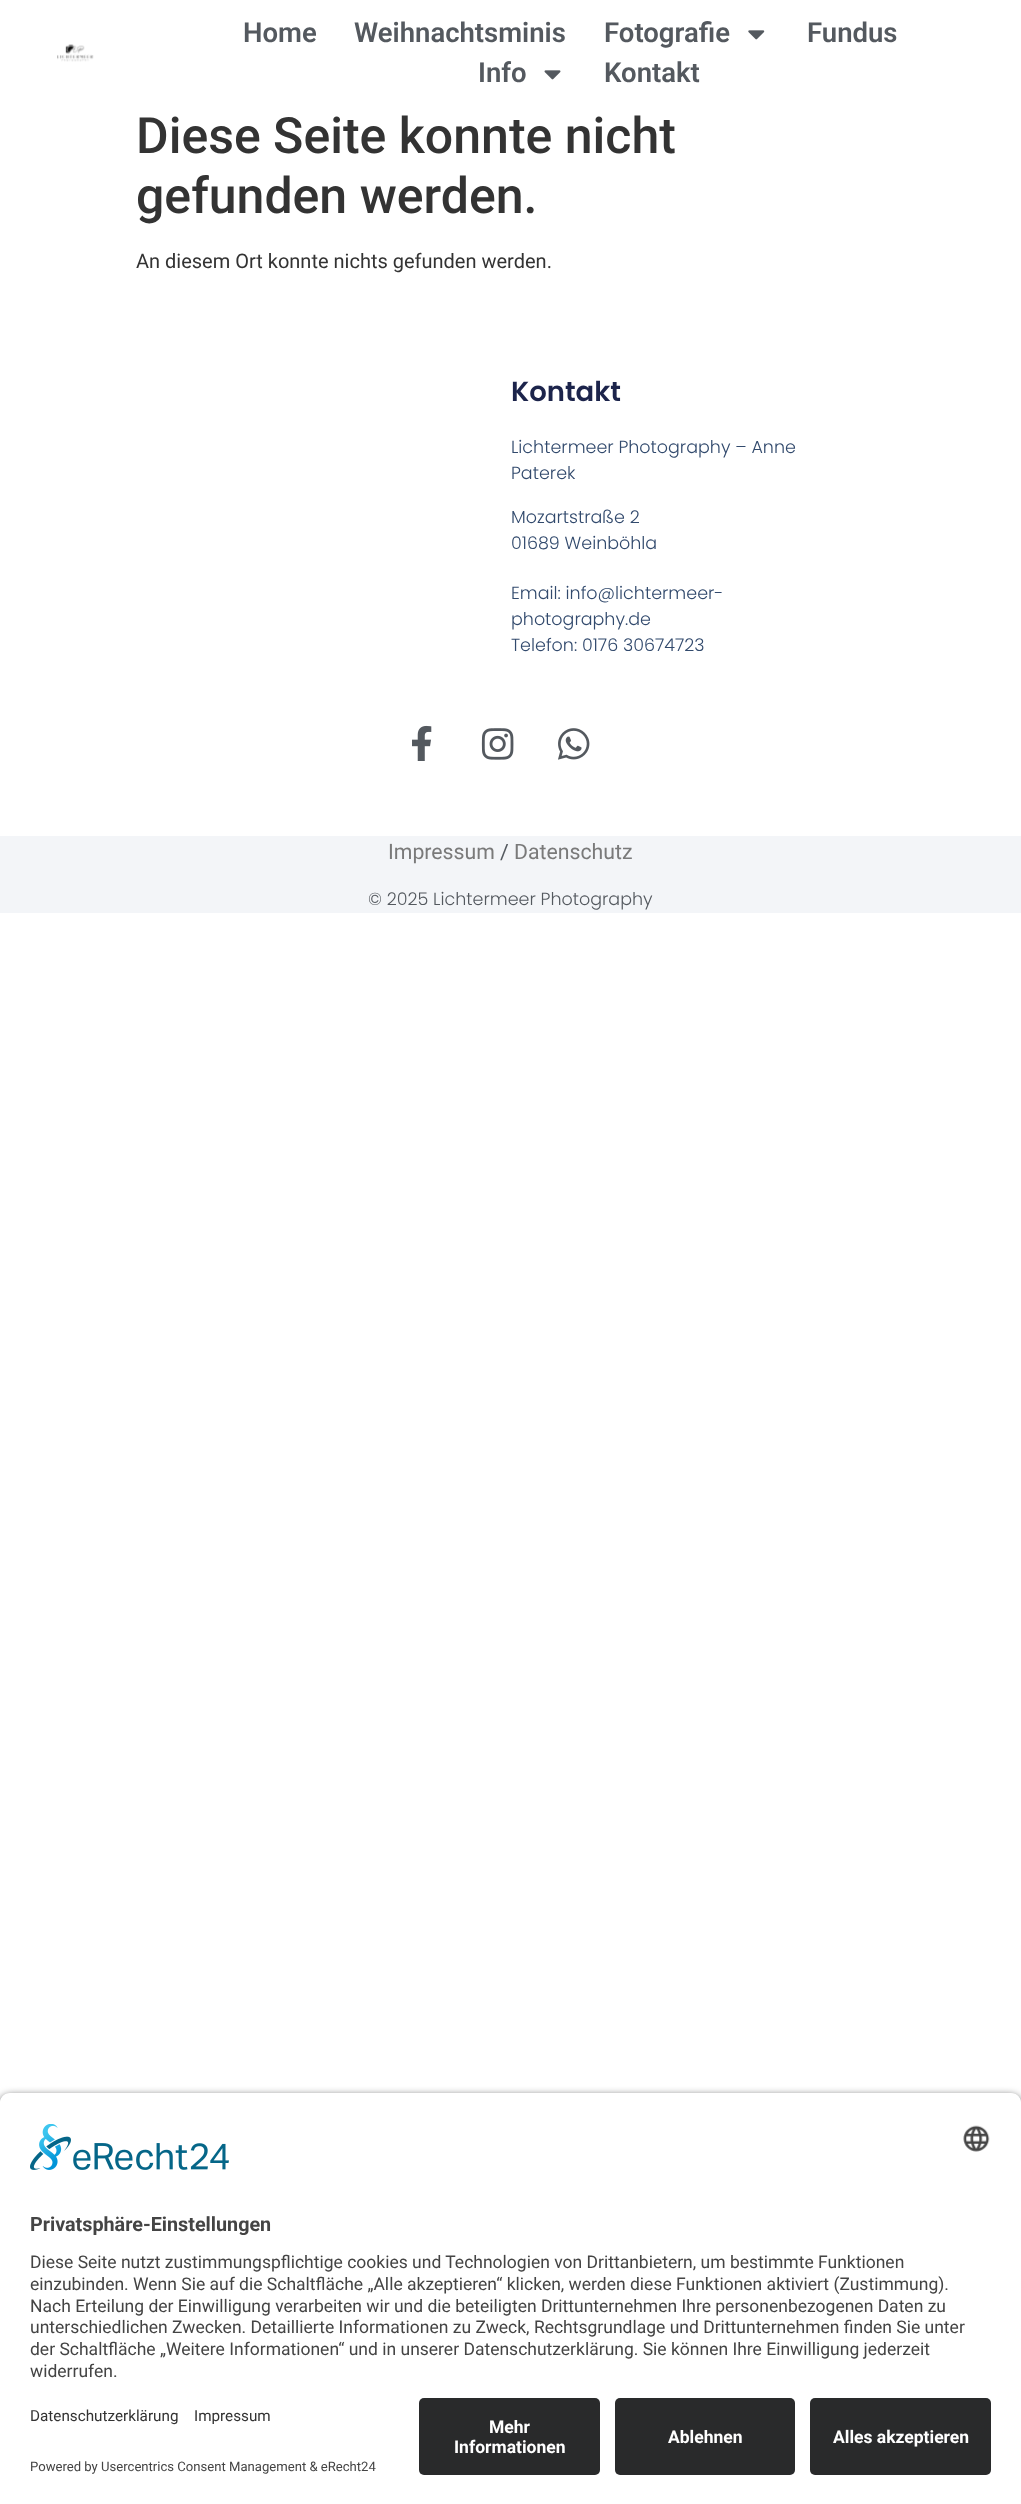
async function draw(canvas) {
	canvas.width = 1021;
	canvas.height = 2504;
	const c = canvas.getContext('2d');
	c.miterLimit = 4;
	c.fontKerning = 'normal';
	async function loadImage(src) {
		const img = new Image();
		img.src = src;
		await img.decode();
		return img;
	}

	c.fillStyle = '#fff';
	c.fillRect(0, 0, 1021, 2504);
	c.drawImage(await loadImage('img1.png'), 57, 44, 37, 18);
	c.font = '600 27.5px Roboto';
	c.fillStyle = '#54595f';
	for (const [text, x, y] of [
		['Home', 243, 42],
		['Weihnachtsminis', 354, 42],
		['Fotografie', 604, 42],
	]) {
		c.fillText(text, x, y);
	}
	c.drawImage(await loadImage('img2.png'), 748, 30, 17, 10);
	c.fillText('Fundus', 807, 42);
	c.fillText('Info', 478, 82);
	c.drawImage(await loadImage('img3.png'), 544, 70, 17, 10);
	c.fillText('Kontakt', 604, 82);
	c.font = '500 50px Roboto';
	c.fillStyle = '#333';
	c.fillText('Diese Seite konnte nicht', 136, 153);
	c.fillText('gefunden werden.', 136, 213);
	c.font = '20px Roboto';
	c.fillText('An diesem Ort konnte nichts gefunden werden.', 136, 268);
	c.font = '600 27.5px Poppins';
	c.fillStyle = '#1c244b';
	c.fillText('Kontakt', 511, 401);
	c.font = '300 17.5px Poppins';
	c.fillStyle = '#324a6d';
	for (const [text, x, y] of [
		['Lichtermeer Photography – Anne', 511, 453],
		['Paterek', 511, 479],
		['Mozartstraße 2', 511, 523],
		['01689 Weinböhla', 511, 549],
		['Email: info@lichtermeer-', 511, 599],
		['photography.de', 511, 625],
		['Telefon: 0176 30674723', 511, 651],
	]) {
		c.fillText(text, x, y);
	}
	c.drawImage(await loadImage('img4.png'), 412, 725, 20, 36);
	c.drawImage(await loadImage('img5.png'), 481, 728, 33, 32);
	c.drawImage(await loadImage('img6.png'), 558, 728, 32, 32);
	c.fillStyle = '#f3f5f8';
	c.fillRect(0, 836, 1021, 77);
	c.font = '21.25px Roboto';
	c.fillStyle = '#7a7a7a';
	c.fillText('Impressum', 388, 859);
	c.fillStyle = '#54595f';
	c.fillText('/', 500, 859);
	c.fillStyle = '#7a7a7a';
	c.fillText('Datenschutz', 514, 859);
	c.font = '300 17.5px Poppins';
	c.fillStyle = '#54595f';
	c.fillText('© 2025 Lichtermeer Photography', 368, 905);
	c.save();
	c.beginPath();
	c.moveTo(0, 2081);
	c.lineTo(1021, 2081);
	c.lineTo(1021, 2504);
	c.lineTo(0, 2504);
	c.closePath();
	c.moveTo(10, 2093);
	c.lineTo(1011, 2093);
	c.bezierCurveTo(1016.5, 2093, 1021, 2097.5, 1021, 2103);
	c.lineTo(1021, 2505);
	c.lineTo(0, 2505);
	c.lineTo(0, 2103);
	c.bezierCurveTo(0, 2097.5, 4.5, 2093, 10, 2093);
	c.closePath();
	c.clip('evenodd');
	c.fillStyle = '#000000cc';
	c.filter = 'blur(4.5px)';
	c.beginPath();
	c.roundRect(0, 2096, 1021, 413, 10);
	c.fill();
	c.filter = 'none';
	c.restore();
	c.save();
	c.beginPath();
	c.roundRect(0, 2093, 1021, 295, [10, 10, 0, 0]);
	c.clip();
	c.fillStyle = '#fff';
	c.fillRect(0, 2094, 1021, 294);
	c.restore();
	c.drawImage(await loadImage('img7.png'), 30, 2124, 199, 46);
	c.drawImage(await loadImage('img8.png'), 963, 2125, 27, 27);
	c.font = 'bold 19.75px Roboto';
	c.fillStyle = '#444';
	c.fillText('Privatsphäre-Einstellungen', 30, 2231);
	c.font = '17.5px Roboto';
	for (const [text, x, y] of [
		['Diese Seite nutzt zustimmungspflichtige cookies und Technologien von Drittanbietern, um bestimmte Funktionen', 30, 2268],
		['einzubinden. Wenn Sie auf die Schaltfläche „Alle akzeptieren“ klicken, werden diese Funktionen aktiviert (Zustimmung).', 30, 2290],
		['Nach Erteilung der Einwilligung verarbeiten wir und die beteiligten Drittunternehmen Ihre personenbezogenen Daten zu', 30, 2312],
		['unterschiedlichen Zwecken. Detaillierte Informationen zu Zweck, Rechtsgrundlage und Drittunternehmen finden Sie unter', 30, 2333],
		['der Schaltfläche „Weitere Informationen“ und in unserer Datenschutzerklärung. Sie können Ihre Einwilligung jederzeit', 30, 2355],
		['widerrufen.', 30, 2377],
	]) {
		c.fillText(text, x, y);
	}
	c.font = '15.25px Roboto';
	c.fillStyle = '#333';
	c.fillText('Datenschutzerklärung', 30, 2421);
	c.fillText('Impressum', 194, 2421);
	c.font = '13.1px Roboto';
	c.fillStyle = '#444';
	c.fillText('Powered by Usercentrics Consent Management & eRecht24', 30, 2471);
	c.fillStyle = '#292a2b';
	c.beginPath();
	c.roundRect(419, 2398, 181, 77, 5);
	c.fill();
	c.font = 'bold 17.5px Roboto';
	c.fillStyle = '#fff';
	c.fillText('Mehr', 489, 2433);
	c.fillText('Informationen', 454, 2453);
	c.fillStyle = '#292a2b';
	c.beginPath();
	c.roundRect(615, 2398, 180, 77, 5);
	c.fill();
	c.fillStyle = '#fff';
	c.fillText('Ablehnen', 668, 2443);
	c.fillStyle = '#292a2b';
	c.beginPath();
	c.roundRect(810, 2398, 181, 77, 5);
	c.fill();
	c.fillStyle = '#fff';
	c.fillText('Alles akzeptieren', 833, 2443);
}

draw(document.querySelector('canvas'));
